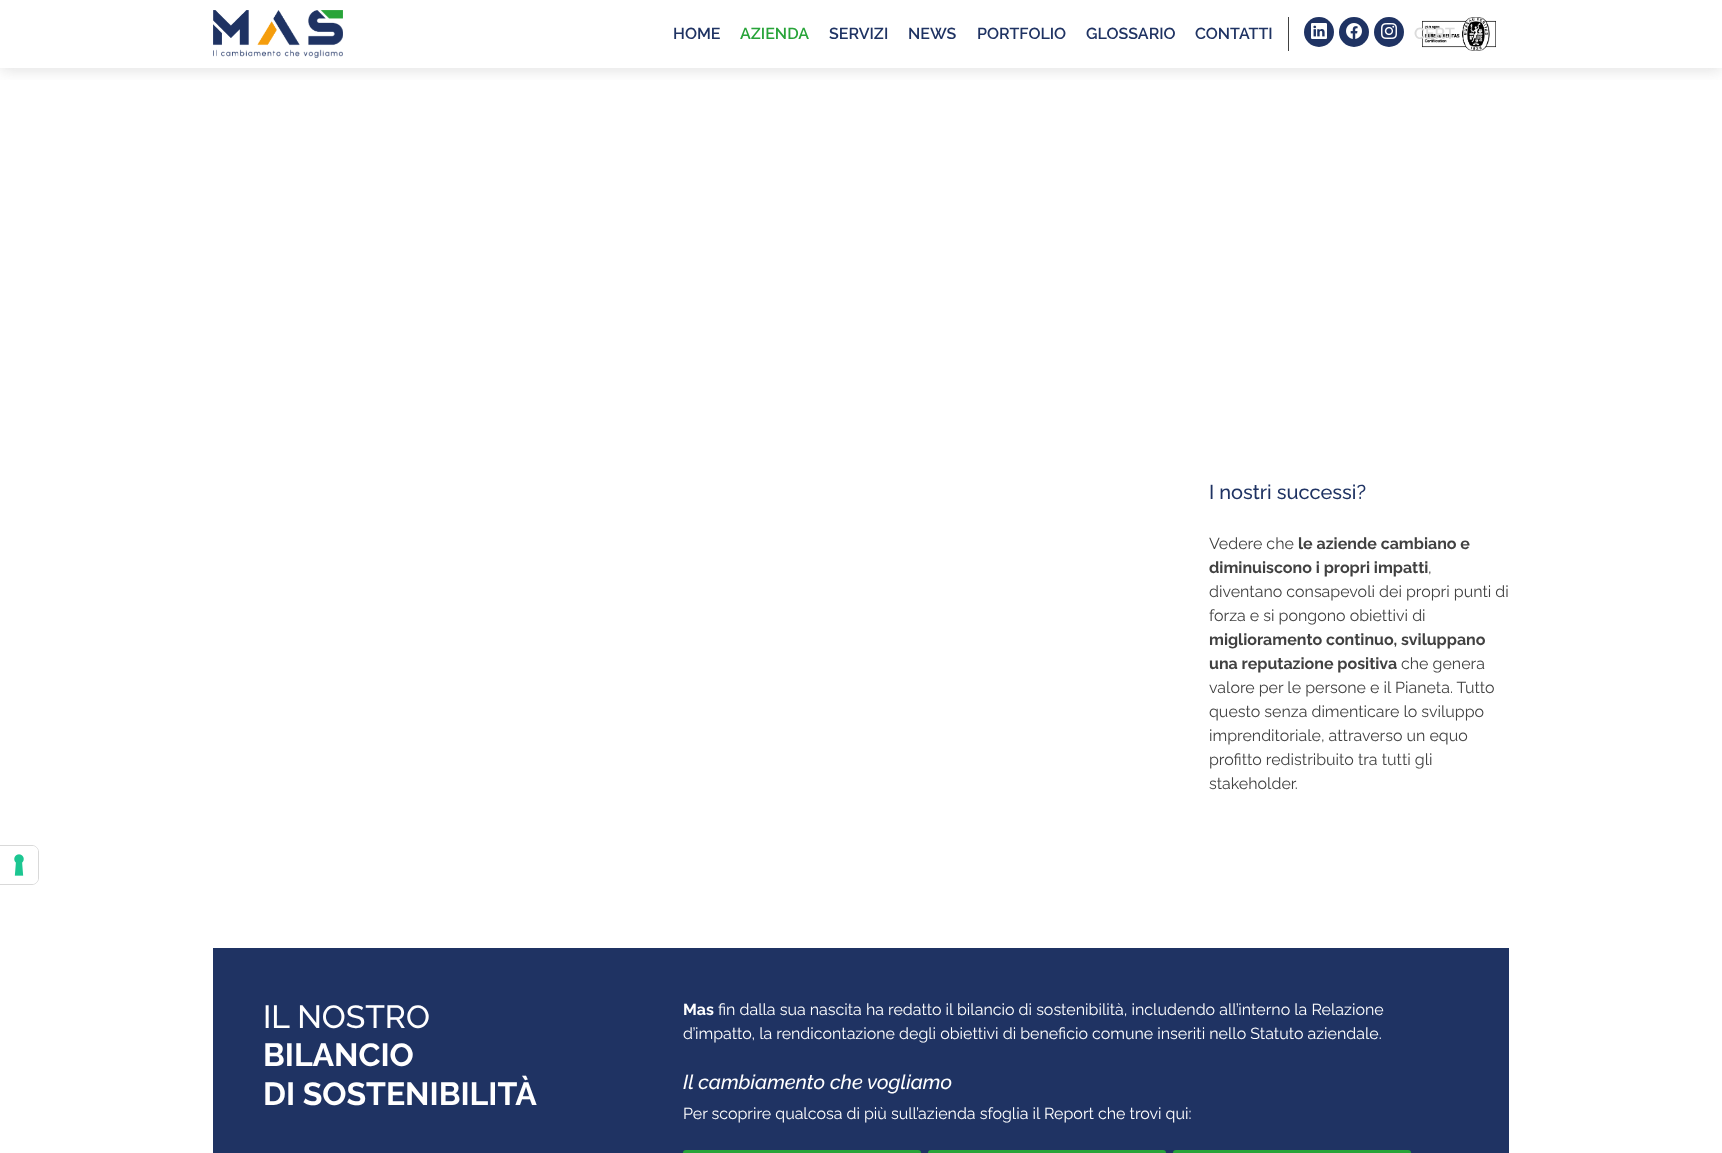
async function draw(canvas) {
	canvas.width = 1722;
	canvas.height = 1153;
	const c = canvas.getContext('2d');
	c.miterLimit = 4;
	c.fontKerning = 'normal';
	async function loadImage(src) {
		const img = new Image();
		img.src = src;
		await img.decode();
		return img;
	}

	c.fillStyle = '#fff';
	c.fillRect(0, 0, 1722, 1153);
	c.beginPath();
	c.moveTo(-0.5, 845.5);
	c.lineTo(32, 845.5);
	c.bezierCurveTo(35.5, 845.5, 38.5, 848.5, 38.5, 852);
	c.lineTo(38.5, 878);
	c.bezierCurveTo(38.5, 881.5, 35.5, 884.5, 32, 884.5);
	c.lineTo(-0.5, 884.5);
	c.closePath();
	c.strokeStyle = '#d9d9d9';
	c.stroke();
	c.beginPath();
	c.roundRect(0, 846, 38, 38, [0, 6, 6, 0]);
	c.fill();
	c.drawImage(await loadImage('img1.png'), 14, 854, 10, 22);
	c.save();
	c.beginPath();
	c.rect(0, 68, 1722, 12);
	c.clip();
	c.fillStyle = '#64646433';
	c.filter = 'blur(7.5px)';
	c.beginPath();
	c.rect(0, 2, 1722, 68);
	c.fill();
	c.filter = 'none';
	c.restore();
	c.drawImage(await loadImage('img2.png'), 213, 10, 130, 48);
	c.font = '600 16px Raleway';
	c.fillStyle = '#1f3363';
	c.fillText('HOME', 673, 39);
	c.fillStyle = '#28a439';
	c.fillText('AZIENDA', 740, 39);
	c.fillStyle = '#1f3363';
	for (const [text, x, y] of [
		['SERVIZI', 829, 39],
		['NEWS', 908, 39],
		['PORTFOLIO', 977, 39],
		['GLOSSARIO', 1086, 39],
	]) {
		c.fillText(text, x, y);
	}
	c.fillStyle = '#414141';
	c.fillRect(1288, 17, 1, 34);
	c.fillStyle = '#1f3363';
	c.fillText('CONTATTI', 1195, 39);
	c.beginPath();
	c.arc(1319, 32, 15, 0, 2 * Math.PI);
	c.fill();
	c.drawImage(await loadImage('img3.png'), 1311, 23, 16, 16);
	c.beginPath();
	c.arc(1354, 32, 15, 0, 2 * Math.PI);
	c.fill();
	c.drawImage(await loadImage('img4.png'), 1346, 23, 16, 16);
	c.beginPath();
	c.arc(1389, 32, 15, 0, 2 * Math.PI);
	c.fill();
	c.drawImage(await loadImage('img5.png'), 1381, 23, 16, 16);
	c.drawImage(await loadImage('img6.png'), 1422, 17, 74, 34);
	c.fillStyle = '#dbdbdb';
	c.fillText('CERT', 1414, 39);
	c.font = '500 20px Raleway';
	c.fillStyle = '#1f3363';
	c.fillText('I nostri successi?', 1209, 499);
	c.font = '16px Raleway';
	c.fillStyle = '#414141';
	c.fillText('Vedere che', 1209, 549);
	c.font = 'bold 16px Raleway';
	c.fillText('le aziende cambiano e', 1298, 549);
	c.fillText('diminuiscono i propri impatti', 1209, 573);
	c.font = '16px Raleway';
	for (const [text, x, y] of [
		[',', 1428, 573],
		['diventano consapevoli dei propri punti di', 1209, 597],
		['forza e si pongono obiettivi di', 1209, 621],
	]) {
		c.fillText(text, x, y);
	}
	c.font = 'bold 16px Raleway';
	c.fillText('miglioramento continuo, sviluppano', 1209, 645);
	c.fillText('una reputazione positiva', 1209, 669);
	c.font = '16px Raleway';
	for (const [text, x, y] of [
		['che genera', 1401, 669],
		['valore per le persone e il Pianeta. Tutto', 1209, 693],
		['questo senza dimenticare lo sviluppo', 1209, 717],
		['imprenditoriale, attraverso un equo', 1209, 741],
		['profitto redistribuito tra tutti gli', 1209, 765],
		['stakeholder.', 1209, 789],
	]) {
		c.fillText(text, x, y);
	}
	c.fillStyle = '#1f3363';
	c.fillRect(213, 948, 1296, 205);
	c.font = '500 32px Raleway';
	c.fillStyle = '#fff';
	c.fillText('IL NOSTRO', 263, 1028);
	c.font = 'bold 32px Raleway';
	c.fillText('BILANCIO', 263, 1066);
	c.fillText('DI SOSTENIBILITÀ', 263, 1105);
	c.font = 'bold 16px Raleway';
	c.fillText('Mas', 683, 1015);
	c.font = '16px Raleway';
	c.fillText('fin dalla sua nascita ha redatto il bilancio di sostenibilità, includendo all’interno la Relazione', 718, 1015);
	c.fillText('d’impatto, la rendicontazione degli obiettivi di beneficio comune inseriti nello Statuto aziendale.', 683, 1039);
	c.font = 'italic 500 20px Raleway';
	c.fillText('Il cambiamento che vogliamo', 683, 1089);
	c.font = '16px Raleway';
	c.fillText('Per scoprire qualcosa di più sull’azienda sfoglia il Report che trovi qui:', 683, 1119);
	c.fillStyle = '#28a439';
	c.beginPath();
	c.roundRect(683, 1150, 238, 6, 3);
	c.fill();
	c.beginPath();
	c.roundRect(928, 1150, 238, 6, 3);
	c.fill();
	c.beginPath();
	c.roundRect(1173, 1150, 238, 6, 3);
	c.fill();
}

draw(document.querySelector('canvas'));
